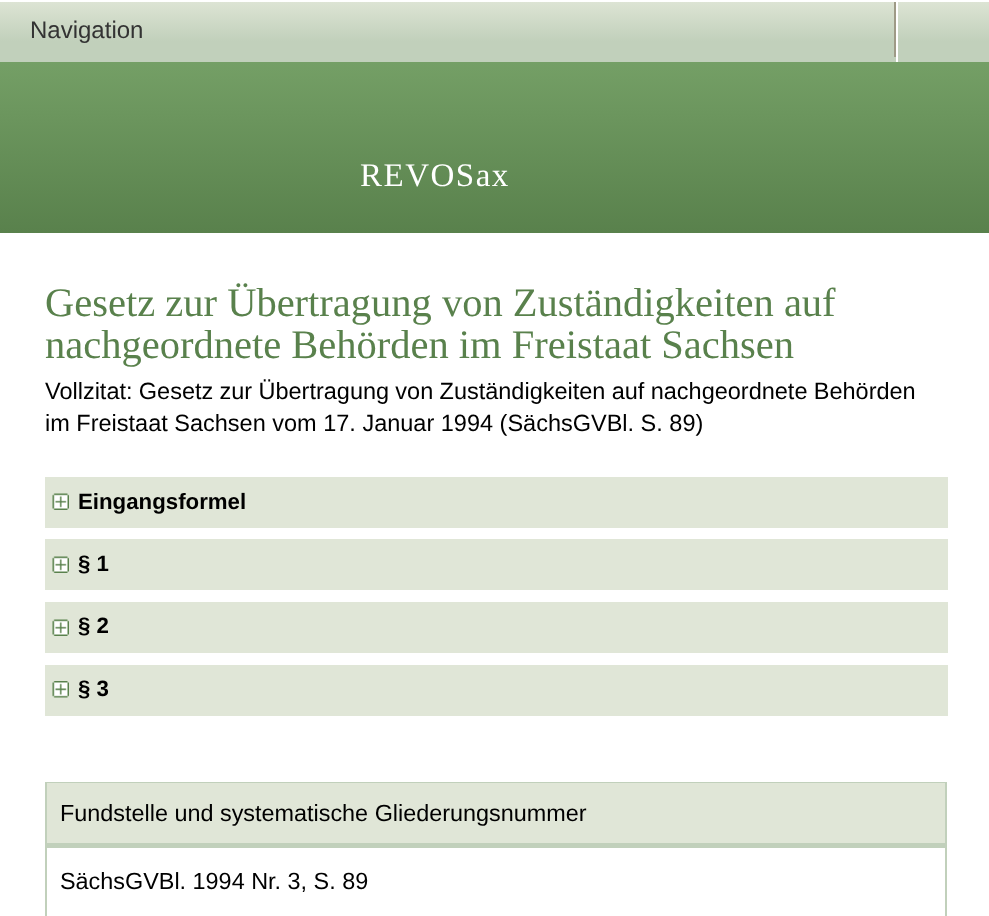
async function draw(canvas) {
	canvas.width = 989;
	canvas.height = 916;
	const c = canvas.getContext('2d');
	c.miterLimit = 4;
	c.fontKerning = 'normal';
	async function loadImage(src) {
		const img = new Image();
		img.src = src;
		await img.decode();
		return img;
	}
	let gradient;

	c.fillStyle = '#fff';
	c.fillRect(0, 0, 989, 916);
	gradient = c.createLinearGradient(480, 0, 480, 233);
	gradient.addColorStop(0, '#7eaa6f');
	gradient.addColorStop(1, '#59814c');
	c.fillStyle = gradient;
	c.fillRect(0, 62, 989, 171);
	gradient = c.createLinearGradient(495, 1.5, 495, 62);
	gradient.addColorStop(0, '#dde4d4');
	gradient.addColorStop(0.66, '#c1d0bb');
	gradient.addColorStop(1, '#c1d0bb');
	c.fillStyle = gradient;
	c.fillRect(0, 2, 989, 60);
	c.fillStyle = '#9e9a86';
	c.fillRect(894, 2, 2, 55);
	c.font = '24px Liberation Sans';
	c.fillStyle = '#333';
	c.fillText('Navigation', 30, 38);
	c.fillStyle = '#fff';
	c.fillRect(896, 2, 2, 60);
	c.letterSpacing = '1.5px';
	c.font = '33px Liberation Serif';
	c.fillText('REVOSax', 360, 186);
	c.letterSpacing = '0px';
	c.font = '40.5px Liberation Serif';
	c.fillStyle = '#59814c';
	c.fillText('Gesetz zur Übertragung von Zuständigkeiten auf', 45, 316);
	c.fillText('nachgeordnete Behörden im Freistaat Sachsen', 45, 358);
	c.wordSpacing = '-0.25px';
	c.font = '23.5px Liberation Sans';
	c.fillStyle = '#000';
	c.fillText('Vollzitat: Gesetz zur Übertragung von Zuständigkeiten auf nachgeordnete Behörden', 45, 399);
	c.wordSpacing = '0px';
	c.fillText('im Freistaat Sachsen vom 17. Januar 1994 (SächsGVBl. S. 89)', 45, 431);
	c.fillStyle = '#e0e6d7';
	c.fillRect(45, 477, 903, 51);
	c.drawImage(await loadImage('img1.png'), 52, 493, 17, 17);
	c.font = 'bold 22.25px Liberation Sans';
	c.fillStyle = '#000';
	c.fillText('Eingangsformel', 78, 509);
	c.fillStyle = '#e0e6d7';
	c.fillRect(45, 539, 903, 51);
	c.drawImage(await loadImage('img1.png'), 52, 556, 17, 17);
	c.fillStyle = '#000';
	c.fillText('§ 1', 78, 571);
	c.fillStyle = '#e0e6d7';
	c.fillRect(45, 602, 903, 51);
	c.drawImage(await loadImage('img1.png'), 52, 619, 17, 17);
	c.fillStyle = '#000';
	c.fillText('§ 2', 78, 633);
	c.fillStyle = '#e0e6d7';
	c.fillRect(45, 665, 903, 51);
	c.drawImage(await loadImage('img2.png'), 52, 681, 17, 17);
	c.fillStyle = '#000';
	c.fillText('§ 3', 78, 696);
	c.strokeStyle = '#c1d0bb';
	c.lineWidth = 2;
	c.strokeRect(46, 783, 900, 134);
	c.fillStyle = '#e0e6d7';
	c.fillRect(47, 783, 898, 60);
	c.fillStyle = '#c1d0bb';
	c.fillRect(47, 843, 898, 5);
	c.font = '23.4px Liberation Sans';
	c.fillStyle = '#000';
	c.fillText('Fundstelle und systematische Gliederungsnummer', 60, 821);
	c.fillText('SächsGVBl. 1994 Nr. 3, S. 89', 60, 889);
}

draw(document.querySelector('canvas'));
